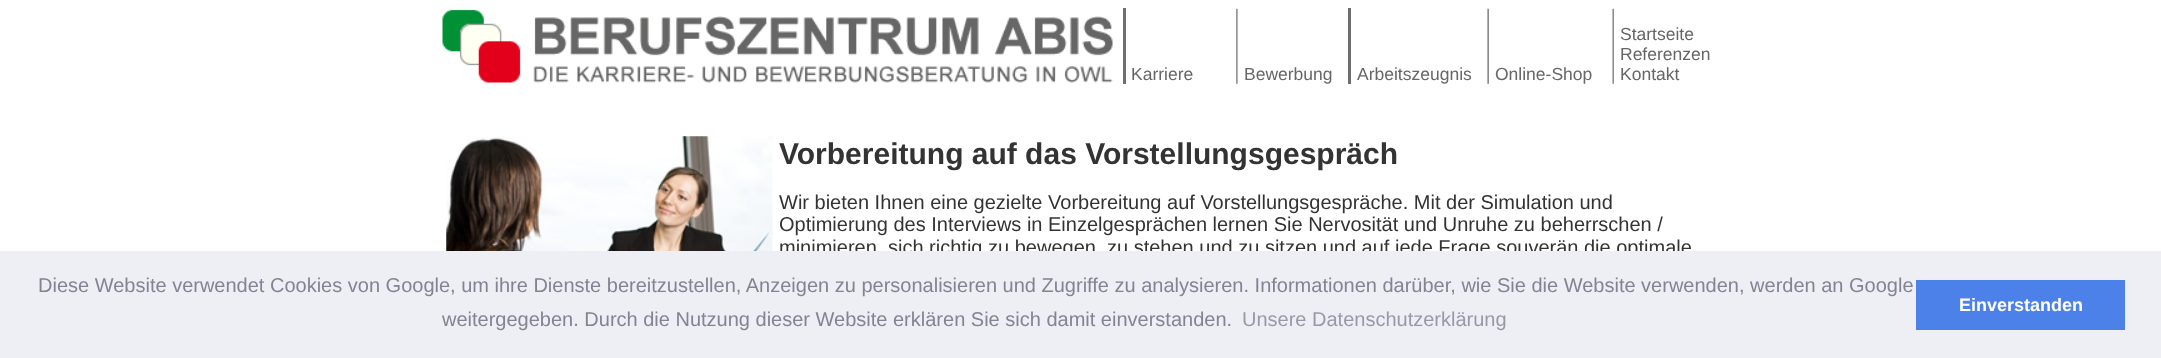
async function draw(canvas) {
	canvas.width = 2161;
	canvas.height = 358;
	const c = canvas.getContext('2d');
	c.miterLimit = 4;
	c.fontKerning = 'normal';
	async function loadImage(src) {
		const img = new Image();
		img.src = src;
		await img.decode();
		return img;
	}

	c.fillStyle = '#fff';
	c.fillRect(0, 0, 2161, 358);
	c.drawImage(await loadImage('img1.png'), 442, 9, 671, 74);
	c.fillStyle = '#6f6f6f';
	c.fillRect(1123, 8, 3, 76);
	c.font = '17.5px Liberation Sans';
	c.fillStyle = '#666';
	c.fillText('Karriere', 1131, 80);
	c.drawImage(await loadImage('img2.png'), 1236, 8, 2, 76);
	c.fillText('Bewerbung', 1244, 80);
	c.fillStyle = '#6f6f6f';
	c.fillRect(1348, 8, 3, 76);
	c.fillStyle = '#666';
	c.fillText('Arbeitszeugnis', 1357, 80);
	c.drawImage(await loadImage('img3.png'), 1487, 8, 2, 76);
	c.fillText('Online-Shop', 1495, 80);
	c.drawImage(await loadImage('img4.png'), 1612, 8, 2, 76);
	for (const [text, x, y] of [
		['Startseite', 1620, 40],
		['Referenzen', 1620, 60],
		['Kontakt', 1620, 80],
	]) {
		c.fillText(text, x, y);
	}
	c.drawImage(await loadImage('img5.png'), 446, 136, 327, 115);
	c.font = 'bold 30px Liberation Sans';
	c.fillStyle = '#333';
	c.fillText('Vorbereitung auf das Vorstellungsgespräch', 779, 164);
	c.font = '20px Liberation Sans';
	for (const [text, x, y] of [
		['Wir bieten Ihnen eine gezielte Vorbereitung auf Vorstellungsgespräche. Mit der Simulation und', 779, 209],
		['Optimierung des Interviews in Einzelgesprächen lernen Sie Nervosität und Unruhe zu beherrschen /', 779, 231],
		['minimieren', 779, 254],
		['sich richtig zu bewegen, zu stehen und zu sitzen und auf jede Frage souverän die optimale', 888, 254],
	]) {
		c.fillText(text, x, y);
	}
	c.fillStyle = '#edeff5';
	c.fillRect(0, 251, 2161, 107);
	c.fillStyle = '#838391';
	c.fillText('Diese Website verwendet Cookies von Google, um ihre Dienste bereitzustellen, Anzeigen zu personalisieren und Zugriffe zu analysieren. Informationen darüber, wie Sie die Website verwenden, werden an Google', 38, 292);
	c.fillText('weitergegeben. Durch die Nutzung dieser Website erklären Sie sich damit einverstanden.', 442, 326);
	c.fillStyle = '#9899a5';
	c.fillText('Unsere Datenschutzerklärung', 1242, 326);
	c.fillStyle = '#4b81e8';
	c.fillRect(1916, 280, 209, 50);
	c.font = 'bold 18px Liberation Sans';
	c.fillStyle = '#fff';
	c.fillText('Einverstanden', 1959, 311);
}

draw(document.querySelector('canvas'));
